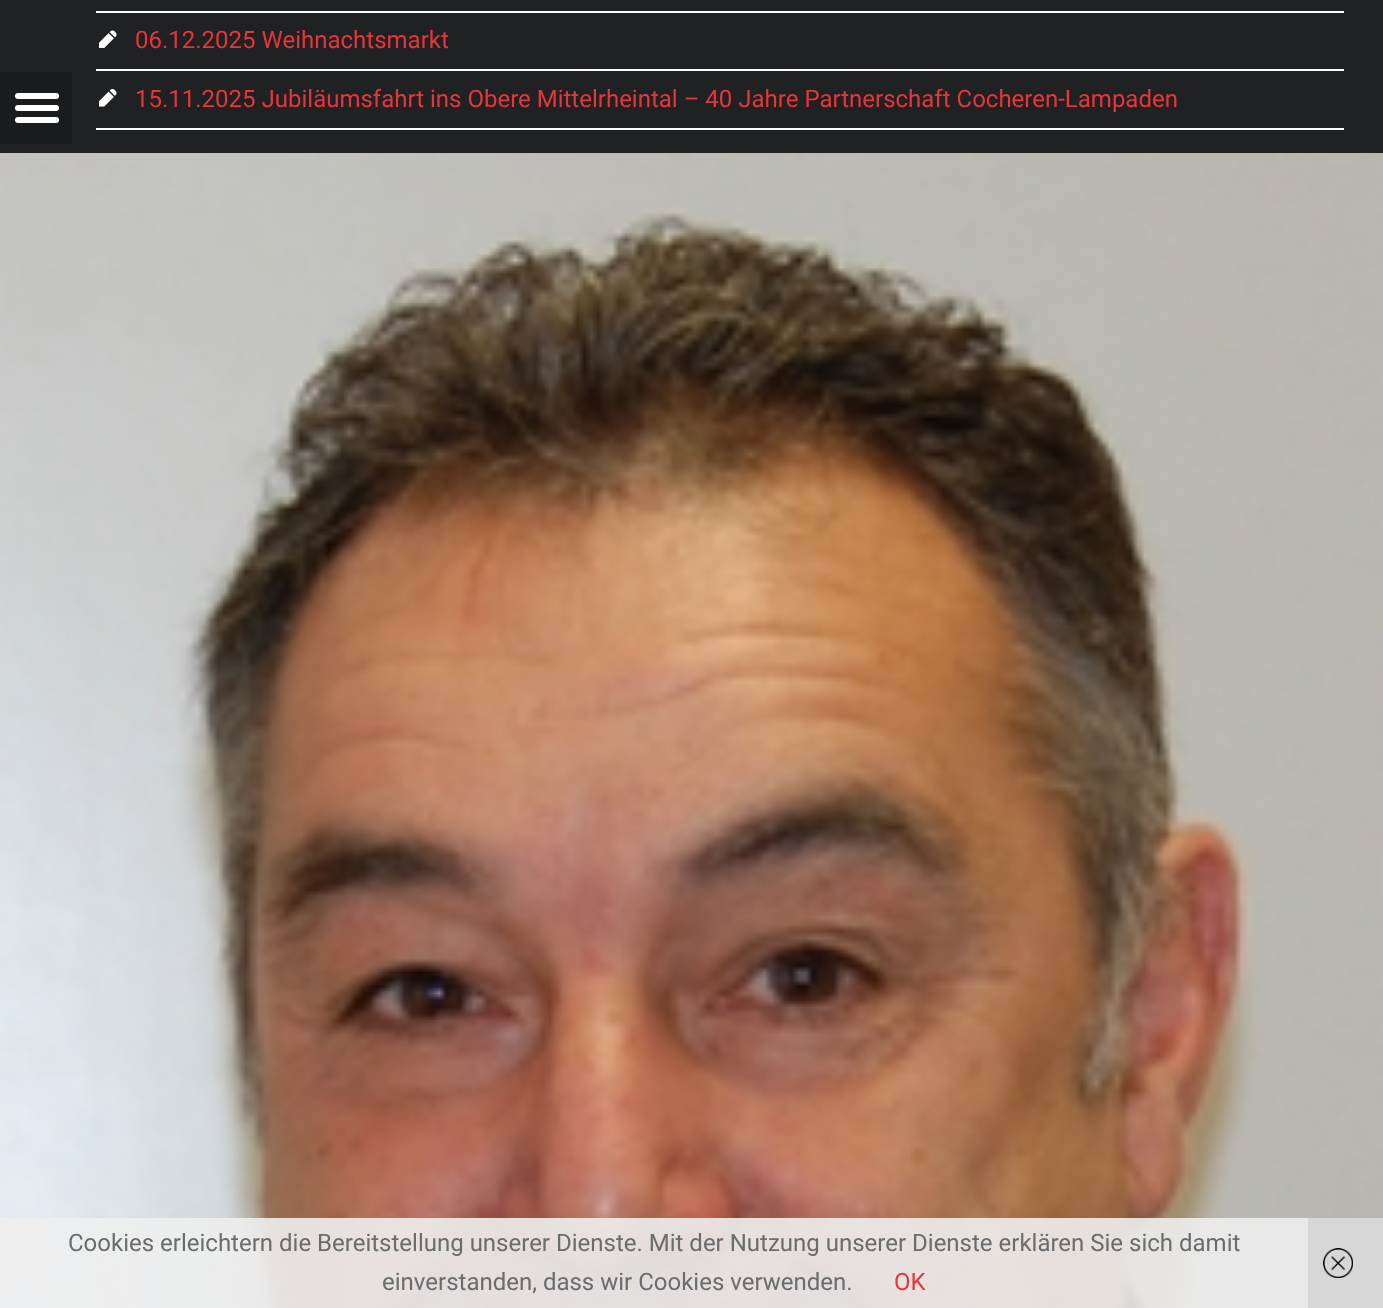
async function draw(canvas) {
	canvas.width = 1383;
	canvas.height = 1308;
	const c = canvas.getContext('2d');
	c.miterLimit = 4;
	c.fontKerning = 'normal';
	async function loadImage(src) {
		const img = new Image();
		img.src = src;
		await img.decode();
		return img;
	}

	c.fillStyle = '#fff';
	c.fillRect(0, 0, 1383, 1308);
	c.fillStyle = '#202123';
	c.fillRect(0, 0, 1383, 153);
	c.fillStyle = '#1a1c1e';
	c.fillRect(0, 72, 72, 72);
	c.fillStyle = '#fff';
	c.beginPath();
	c.roundRect(15, 93, 44, 6, 3);
	c.fill();
	c.beginPath();
	c.roundRect(15, 105, 44, 6, 3);
	c.fill();
	c.beginPath();
	c.roundRect(15, 117, 44, 6, 3);
	c.fill();
	c.fillRect(96, 11, 1248, 2);
	c.fillRect(96, 69, 1248, 2);
	c.drawImage(await loadImage('img1.png'), 99, 30, 18, 18);
	c.font = '24px Roboto';
	c.fillStyle = '#e53739';
	c.fillText('06.12.2025 Weihnachtsmarkt', 135, 48);
	c.fillStyle = '#fff';
	c.fillRect(96, 128, 1248, 2);
	c.drawImage(await loadImage('img2.png'), 99, 89, 18, 18);
	c.fillStyle = '#e53739';
	c.fillText('15.11.2025 Jubiläumsfahrt ins Obere Mittelrheintal – 40 Jahre Partnerschaft Cocheren-Lampaden', 135, 107);
	c.drawImage(await loadImage('img3.png'), 0, 153, 1383, 1155);
	c.fillStyle = '#eeeeeee6';
	c.fillRect(0, 1218, 1308, 90);
	c.fillStyle = '#6a6c6e';
	c.fillText('Cookies erleichtern die Bereitstellung unserer Dienste. Mit der Nutzung unserer Dienste erklären Sie sich damit', 68, 1251);
	c.fillText('einverstanden, dass wir Cookies verwenden.', 382, 1290);
	c.fillStyle = '#e53739';
	c.fillText('OK', 894, 1290);
	c.fillStyle = '#d7d7d7';
	c.fillRect(1308, 1218, 75, 90);
	c.drawImage(await loadImage('img4.png'), 1323, 1248, 30, 30);
}

draw(document.querySelector('canvas'));
